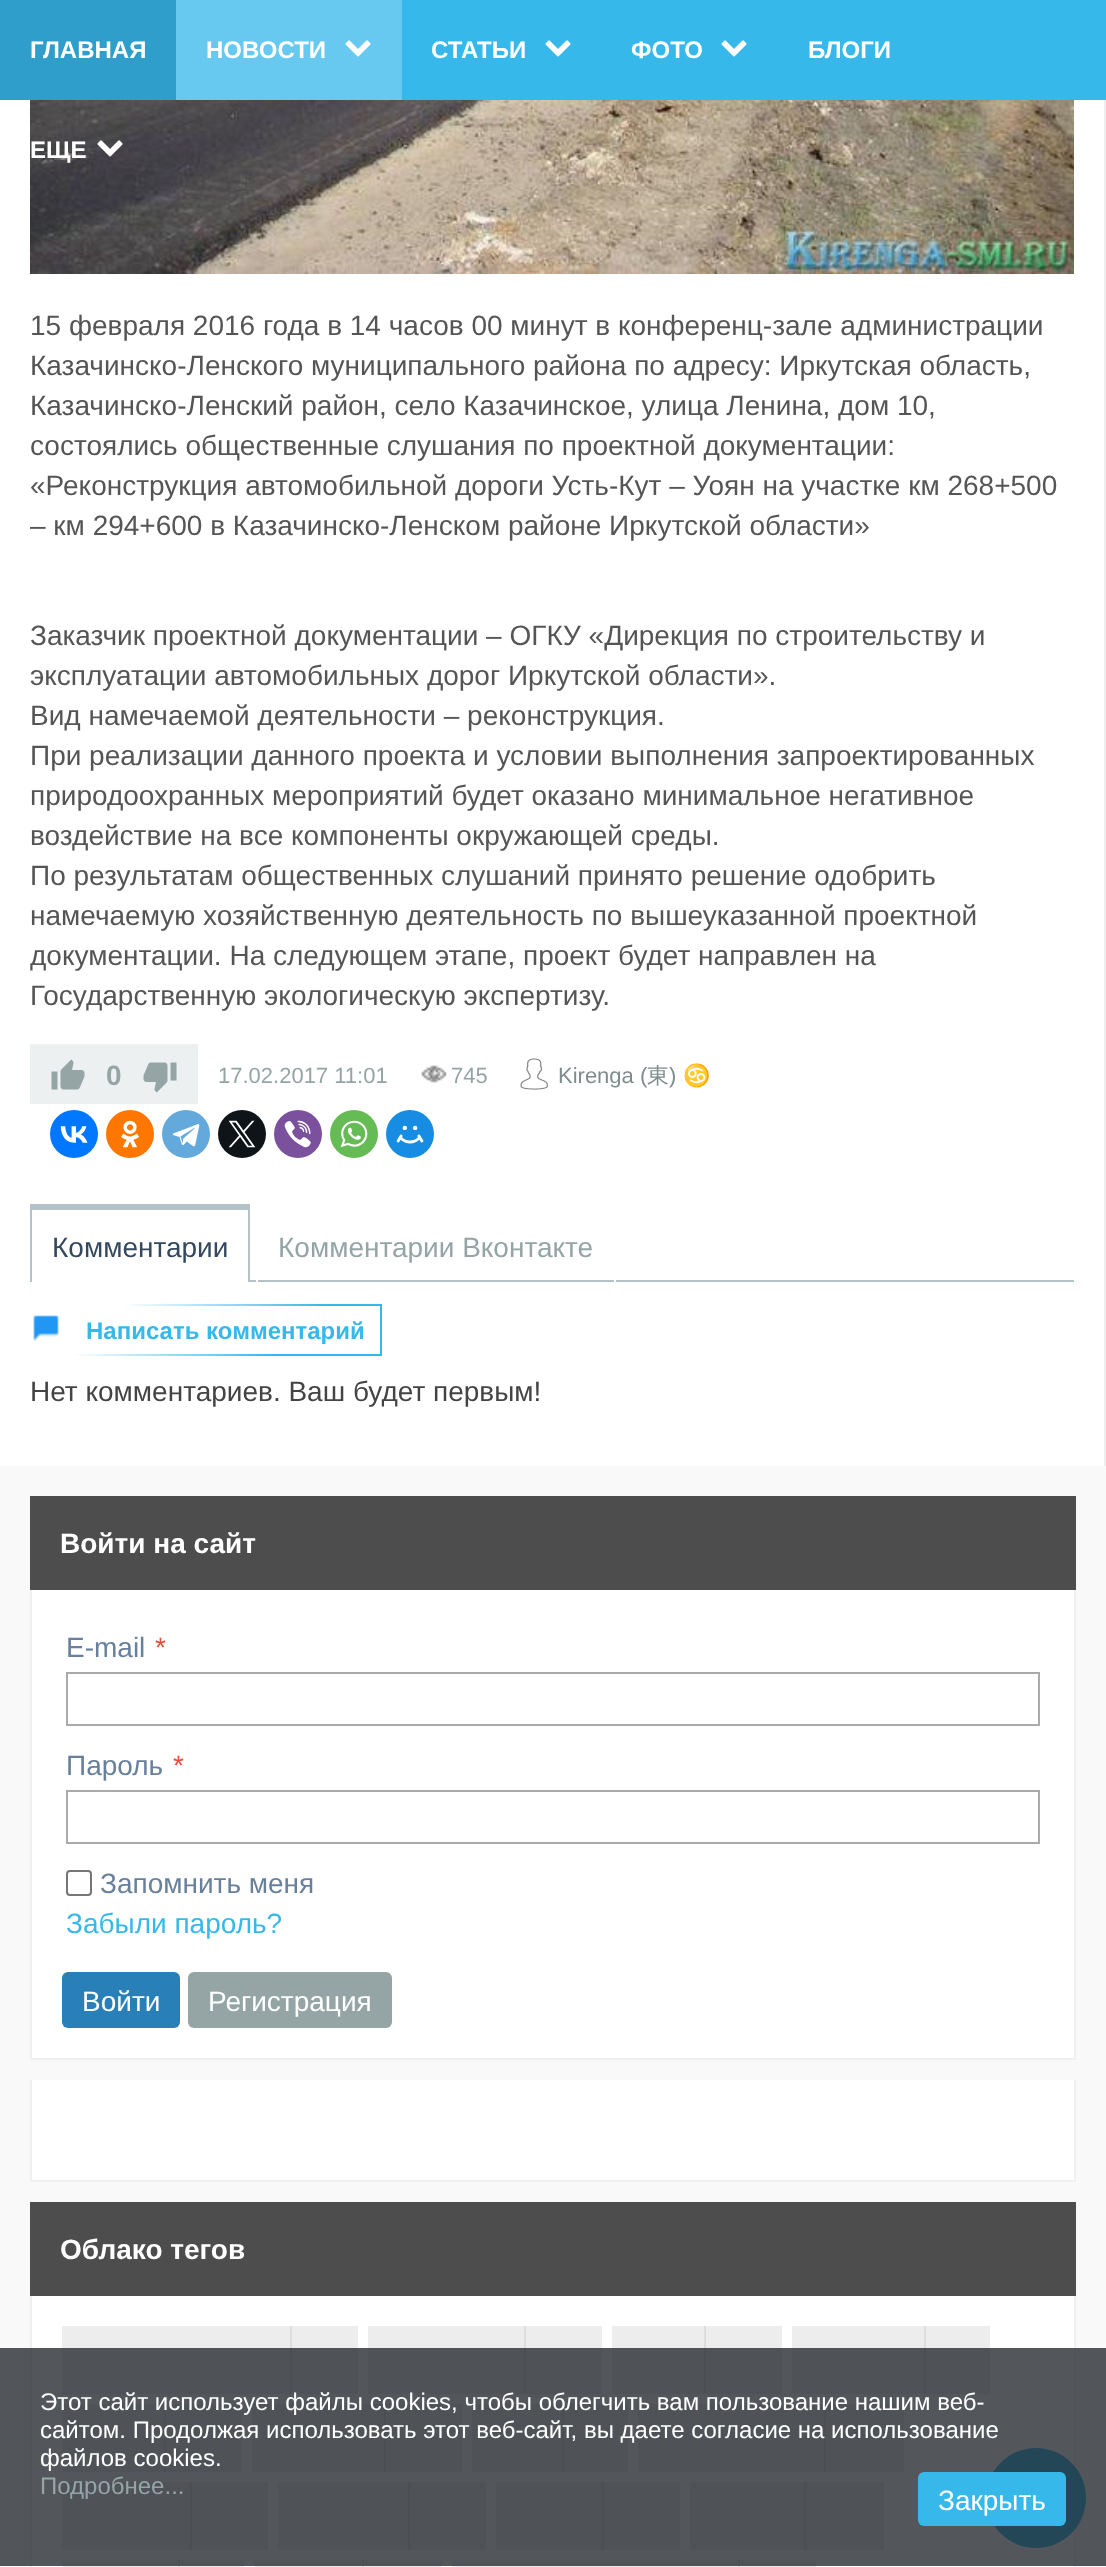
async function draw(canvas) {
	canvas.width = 1106;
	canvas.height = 2567;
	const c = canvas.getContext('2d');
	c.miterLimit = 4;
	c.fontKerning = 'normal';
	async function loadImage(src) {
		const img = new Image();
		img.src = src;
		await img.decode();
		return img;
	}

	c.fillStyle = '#f9f9f9';
	c.fillRect(0, 0, 1106, 2567);
	c.fillStyle = '#37b8eb';
	c.fillRect(402, 0, 704, 100);
	c.fillStyle = '#2f9eca';
	c.fillRect(0, 0, 176, 100);
	c.font = 'bold 24px Liberation Sans';
	c.fillStyle = '#fff';
	c.fillText('ГЛАВНАЯ', 30, 58);
	c.fillStyle = '#67c9f0';
	c.fillRect(176, 0, 226, 100);
	c.fillStyle = '#fff';
	c.fillText('НОВОСТИ', 206, 58);
	c.drawImage(await loadImage('img1.png'), 345, 40, 26, 17);
	c.fillText('СТАТЬИ', 431, 58);
	c.drawImage(await loadImage('img2.png'), 545, 40, 26, 17);
	c.fillText('ФОТО', 631, 58);
	c.drawImage(await loadImage('img2.png'), 721, 40, 26, 17);
	c.fillText('БЛОГИ', 808, 58);
	c.fillRect(0, 100, 1104, 1366);
	c.drawImage(await loadImage('img4.png'), 30, 100, 1044, 174);
	c.fillText('ЕЩЕ', 30, 158);
	c.drawImage(await loadImage('img3.png'), 97, 140, 26, 17);
	c.fillStyle = '#eee';
	c.fillRect(1104, 100, 2, 1366);
	c.font = '28px Liberation Sans';
	c.fillStyle = '#555';
	for (const [text, x, y] of [
		['15 февраля 2016 года в 14 часов 00 минут в конференц-зале администрации', 30, 335],
		['Казачинско-Ленского муниципального района по адресу: Иркутская область,', 30, 375],
		['Казачинско-Ленский район, село Казачинское, улица Ленина, дом 10,', 30, 415],
		['состоялись общественные слушания по проектной документации:', 30, 455],
		['«Реконструкция автомобильной дороги Усть-Кут – Уоян на участке км 268+500', 30, 495],
		['– км 294+600 в Казачинско-Ленском районе Иркутской области»', 30, 535],
		['Заказчик проектной документации – ОГКУ «Дирекция по строительству и', 30, 645],
		['эксплуатации автомобильных дорог Иркутской области».', 30, 685],
		['Вид намечаемой деятельности – реконструкция.', 30, 725],
		['При реализации данного проекта и условии выполнения запроектированных', 30, 765],
		['природоохранных мероприятий будет оказано минимальное негативное', 30, 805],
		['воздействие на все компоненты окружающей среды.', 30, 845],
		['По результатам общественных слушаний принято решение одобрить', 30, 885],
		['намечаемую хозяйственную деятельность по вышеуказанной проектной', 30, 925],
		['документации. На следующем этапе, проект будет направлен на', 30, 965],
		['Государственную экологическую экспертизу.', 30, 1005],
	]) {
		c.fillText(text, x, y);
	}
	c.fillStyle = '#ecf0f1';
	c.fillRect(30, 1044, 168, 60);
	c.drawImage(await loadImage('img5.png'), 51, 1059, 34, 31);
	c.font = 'bold 28px Liberation Sans';
	c.fillStyle = '#95a5a6';
	c.fillText('0', 106, 1085);
	c.drawImage(await loadImage('img6.png'), 143, 1062, 34, 31);
	c.font = '22px Liberation Sans';
	c.fillText('17.02.2017 11:01', 218, 1083);
	c.drawImage(await loadImage('img7.png'), 421, 1065, 26, 18);
	c.fillText('745', 451, 1083);
	c.drawImage(await loadImage('img8.png'), 520, 1058, 28, 32);
	c.fillStyle = '#7f8c8d';
	c.fillText('Kirenga (', 558, 1083);
	c.font = '500 22px WenQuanYi Zen Hei';
	c.fillText('東', 647, 1083);
	c.font = '22px Liberation Sans';
	c.fillText(')', 669, 1083);
	c.font = '22px Noto Color Emoji';
	c.fillText('♋', 683, 1083);
	c.fillStyle = '#07f';
	c.beginPath();
	c.arc(74, 1134, 24, 0, 2 * Math.PI);
	c.fill();
	c.drawImage(await loadImage('img9.png'), 60, 1126, 28, 17);
	c.fillStyle = '#f70';
	c.beginPath();
	c.arc(130, 1134, 24, 0, 2 * Math.PI);
	c.fill();
	c.drawImage(await loadImage('img10.png'), 121, 1120, 18, 28);
	c.fillStyle = '#64a9dc';
	c.beginPath();
	c.arc(186, 1134, 24, 0, 2 * Math.PI);
	c.fill();
	c.drawImage(await loadImage('img11.png'), 172, 1124, 28, 23);
	c.fillStyle = '#0f1419';
	c.beginPath();
	c.arc(242, 1134, 24, 0, 2 * Math.PI);
	c.fill();
	c.drawImage(await loadImage('img12.png'), 228, 1120, 28, 28);
	c.fillStyle = '#7b519d';
	c.beginPath();
	c.arc(298, 1134, 24, 0, 2 * Math.PI);
	c.fill();
	c.drawImage(await loadImage('img13.png'), 284, 1120, 27, 28);
	c.fillStyle = '#65bc54';
	c.beginPath();
	c.arc(354, 1134, 24, 0, 2 * Math.PI);
	c.fill();
	c.drawImage(await loadImage('img14.png'), 340, 1120, 28, 28);
	c.fillStyle = '#168de2';
	c.beginPath();
	c.arc(410, 1134, 24, 0, 2 * Math.PI);
	c.fill();
	c.drawImage(await loadImage('img15.png'), 396, 1125, 28, 19);
	c.fillStyle = '#b3c2c9';
	c.fillRect(250, 1280, 824, 2);
	c.font = '28px Liberation Sans';
	c.fillStyle = '#34495e';
	c.fillText('Комментарии', 52, 1257);
	for (const [x, y, w, h, color] of [
		[30, 1204, 220, 6, '#b3c2c9'],
		[248, 1204, 2, 78, '#b3c2c9'],
		[30, 1204, 2, 78, '#b3c2c9'],
	]) {
		c.fillStyle = color;
		c.fillRect(x, y, w, h);
	}
	c.fillStyle = '#95a5a6';
	c.fillText('Комментарии Вконтакте', 278, 1257);
	c.fillStyle = '#fff';
	c.fillRect(614, 1280, 2, 2);
	c.fillRect(256, 1280, 2, 2);
	c.drawImage(await loadImage('img16.png'), 33, 1315, 26, 26);
	c.drawImage(await loadImage('img17.png'), 76, 1304, 306, 52);
	c.font = 'bold 24px Liberation Sans';
	c.fillStyle = '#37b8eb';
	c.fillText('Написать комментарий', 86, 1339);
	c.font = '28px Liberation Sans';
	c.fillStyle = '#444';
	c.fillText('Нет комментариев. Ваш будет первым!', 30, 1401);
	c.fillStyle = '#fff';
	c.fillRect(30, 1590, 1046, 470);
	c.fillStyle = '#4e4d4d';
	c.fillRect(30, 1496, 1046, 94);
	c.font = 'bold 28px Liberation Sans';
	c.fillStyle = '#fff';
	c.fillText('Войти на сайт', 60, 1553);
	c.fillStyle = '#f0f0f0';
	c.beginPath();
	c.moveTo(1076, 1590);
	c.lineTo(1076, 2060);
	c.lineTo(1074, 2058);
	c.lineTo(1074, 1590);
	c.closePath();
	c.fill();
	c.fillStyle = '#0000000f';
	c.beginPath();
	c.moveTo(1076, 2060);
	c.lineTo(30, 2060);
	c.lineTo(32, 2058);
	c.lineTo(1074, 2058);
	c.closePath();
	c.fill();
	c.beginPath();
	c.moveTo(30, 2060);
	c.lineTo(30, 1590);
	c.lineTo(32, 1590);
	c.lineTo(32, 2058);
	c.closePath();
	c.fill();
	c.font = '28px Liberation Sans';
	c.fillStyle = '#68809b';
	c.fillText('E-mail', 66, 1657);
	c.fillStyle = '#e74c3c';
	c.fillText('*', 155, 1657);
	c.strokeStyle = '#aaa';
	c.lineWidth = 2;
	c.strokeRect(67, 1673, 972, 52);
	c.fillStyle = '#68809b';
	c.fillText('Пароль', 66, 1775);
	c.fillStyle = '#e74c3c';
	c.fillText('*', 173, 1775);
	c.strokeRect(67, 1791, 972, 52);
	c.beginPath();
	c.roundRect(67, 1871, 24, 24, 3);
	c.strokeStyle = '#767676';
	c.stroke();
	c.fillStyle = '#68809b';
	c.fillText('Запомнить меня', 100, 1893);
	c.fillStyle = '#37b8eb';
	c.fillText('Забыли пароль?', 66, 1933);
	c.fillStyle = '#2980b9';
	c.beginPath();
	c.roundRect(62, 1972, 118, 56, 6);
	c.fill();
	c.fillStyle = '#fff';
	c.fillText('Войти', 82, 2011);
	c.fillStyle = '#95a5a6';
	c.beginPath();
	c.roundRect(188, 1972, 204, 56, 6);
	c.fill();
	c.fillStyle = '#fff';
	c.fillText('Регистрация', 208, 2011);
	c.fillRect(30, 2080, 1046, 102);
	c.fillStyle = '#f0f0f0';
	c.beginPath();
	c.moveTo(1076, 2080);
	c.lineTo(1076, 2182);
	c.lineTo(1074, 2180);
	c.lineTo(1074, 2080);
	c.closePath();
	c.fill();
	c.fillStyle = '#0000000f';
	c.beginPath();
	c.moveTo(1076, 2182);
	c.lineTo(30, 2182);
	c.lineTo(32, 2180);
	c.lineTo(1074, 2180);
	c.closePath();
	c.fill();
	c.beginPath();
	c.moveTo(30, 2182);
	c.lineTo(30, 2080);
	c.lineTo(32, 2080);
	c.lineTo(32, 2180);
	c.closePath();
	c.fill();
	c.fillStyle = '#fff';
	c.fillRect(32, 2296, 1042, 271);
	c.fillStyle = '#4e4d4d';
	c.fillRect(30, 2202, 1046, 94);
	c.font = 'bold 28px Liberation Sans';
	c.fillStyle = '#fff';
	c.fillText('Облако тегов', 60, 2259);
	c.fillStyle = '#f0f0f0';
	c.beginPath();
	c.moveTo(1076, 2296);
	c.lineTo(1076, 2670);
	c.lineTo(1074, 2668);
	c.lineTo(1074, 2296);
	c.closePath();
	c.fill();
	c.beginPath();
	c.moveTo(30, 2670);
	c.lineTo(30, 2296);
	c.lineTo(32, 2296);
	c.lineTo(32, 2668);
	c.closePath();
	c.fill();
	for (const [x, y, w, h, color] of [
		[62, 2326, 296, 68, '#ededed'],
		[290, 2326, 2, 68, '#ddd'],
		[368, 2326, 234, 68, '#ededed'],
		[524, 2326, 2, 68, '#ddd'],
		[612, 2326, 170, 68, '#ededed'],
		[704, 2326, 2, 68, '#ddd'],
		[792, 2326, 198, 68, '#ededed'],
		[924, 2326, 2, 68, '#ddd'],
		[62, 2404, 180, 68, '#ededed'],
		[164, 2404, 2, 68, '#ddd'],
		[252, 2404, 210, 68, '#ededed'],
		[384, 2404, 2, 68, '#ddd'],
		[472, 2404, 156, 68, '#ededed'],
		[562, 2404, 2, 68, '#ddd'],
		[638, 2404, 266, 68, '#ededed'],
		[824, 2404, 2, 68, '#ddd'],
		[62, 2482, 206, 68, '#ededed'],
		[190, 2482, 2, 68, '#ddd'],
		[278, 2482, 208, 68, '#ededed'],
		[408, 2482, 2, 68, '#ddd'],
		[496, 2482, 184, 68, '#ededed'],
		[602, 2482, 2, 68, '#ddd'],
		[690, 2482, 194, 68, '#ededed'],
		[804, 2482, 2, 68, '#ddd'],
		[62, 2560, 182, 7, '#ededed'],
		[178, 2560, 2, 7, '#ddd'],
		[254, 2560, 188, 7, '#ededed'],
		[362, 2560, 2, 7, '#ddd'],
		[452, 2560, 364, 7, '#ededed'],
		[738, 2560, 2, 7, '#ddd'],
	]) {
		c.fillStyle = color;
		c.fillRect(x, y, w, h);
	}
	c.fillStyle = '#37b8eb';
	c.beginPath();
	c.arc(1036, 2498, 50, 0, 2 * Math.PI);
	c.fill();
	c.fillStyle = '#1f252bc4';
	c.fillRect(0, 2348, 1106, 218);
	c.font = '24px Liberation Sans';
	c.fillStyle = '#fff';
	for (const [text, x, y] of [
		['Этот сайт использует файлы cookies, чтобы облегчить вам пользование нашим веб-', 40, 2410],
		['сайтом. Продолжая использовать этот веб-сайт, вы даете согласие на использование', 40, 2438],
		['файлов cookies.', 40, 2466],
	]) {
		c.fillText(text, x, y);
	}
	c.fillStyle = '#95a5a6';
	c.fillText('Подробнее...', 40, 2494);
	c.fillStyle = '#37b8eb';
	c.beginPath();
	c.roundRect(918, 2472, 148, 54, 6);
	c.fill();
	c.font = '28px Liberation Sans';
	c.fillStyle = '#fff';
	c.fillText('Закрыть', 938, 2510);
}

draw(document.querySelector('canvas'));
